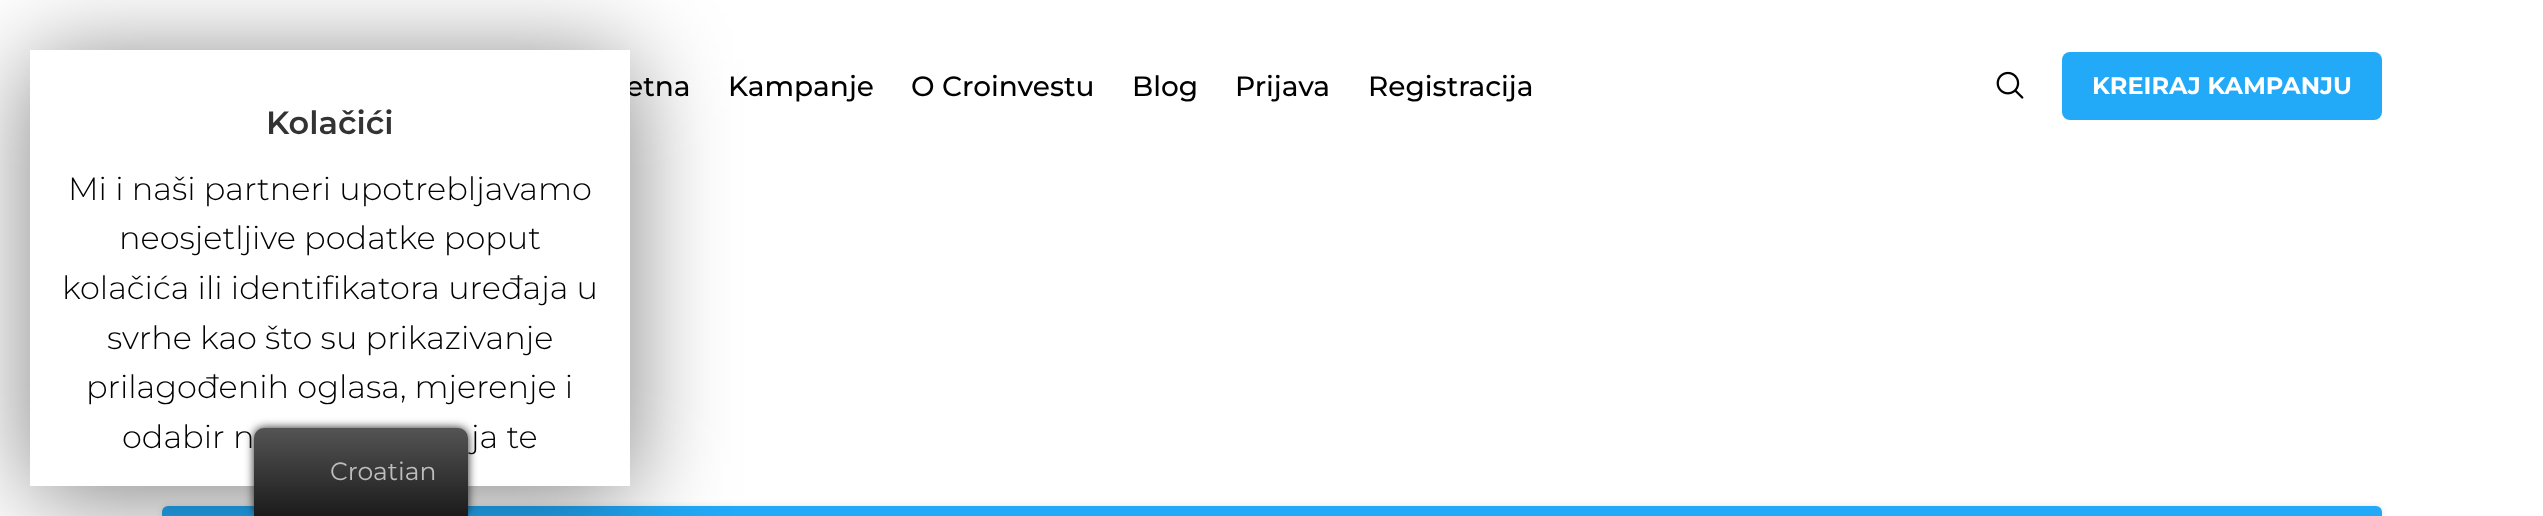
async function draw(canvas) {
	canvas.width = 2543;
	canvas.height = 516;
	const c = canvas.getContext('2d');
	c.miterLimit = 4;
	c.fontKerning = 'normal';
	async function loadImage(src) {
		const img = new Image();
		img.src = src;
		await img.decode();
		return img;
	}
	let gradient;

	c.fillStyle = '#fff';
	c.fillRect(0, 0, 2543, 516);
	c.font = '500 28px Montserrat';
	c.fillStyle = '#000';
	for (const [text, x, y] of [
		['etna', 626, 96],
		['Kampanje', 728, 96],
		['O Croinvestu', 911, 96],
		['Blog', 1132, 96],
		['Prijava', 1235, 96],
		['Registracija', 1368, 96],
	]) {
		c.fillText(text, x, y);
	}
	c.drawImage(await loadImage('img1.png'), 1996, 71, 28, 28);
	c.fillStyle = '#22a9f7';
	c.beginPath();
	c.roundRect(2062, 52, 320, 68, 8);
	c.fill();
	c.font = 'bold 24px Montserrat';
	c.fillStyle = '#fff';
	c.fillText('KREIRAJ KAMPANJU', 2092, 94);
	c.fillStyle = '#0000001a';
	c.filter = 'blur(3px)';
	c.beginPath();
	c.roundRect(162, 506, 2220, 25, 6);
	c.fill();
	c.filter = 'none';
	c.fillStyle = '#22a9f7';
	c.beginPath();
	c.roundRect(162, 506, 2220, 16, 6);
	c.fill();
	c.fillStyle = '#00000080';
	c.filter = 'blur(50px)';
	c.beginPath();
	c.rect(30, 60, 600, 436);
	c.fill();
	c.filter = 'none';
	c.fillStyle = '#fff';
	c.fillRect(30, 50, 600, 436);
	c.font = '600 32px Montserrat';
	c.fillStyle = '#333';
	c.fillText('Kolačići', 266, 134);
	c.font = '300 32px Montserrat';
	c.fillStyle = '#000';
	for (const [text, x, y] of [
		['Mi i naši partneri upotrebljavamo', 68, 200],
		['neosjetljive podatke poput', 119, 249],
		['kolačića ili identifikatora uređaja u', 62, 299],
		['svrhe kao što su prikazivanje', 107, 349],
		['prilagođenih oglasa, mjerenje i', 86, 398],
		['odabir n', 122, 448],
		['ja te', 471, 448],
	]) {
		c.fillText(text, x, y);
	}
	c.fillStyle = '#212121';
	c.filter = 'blur(5px)';
	c.beginPath();
	c.roundRect(254, 428, 214, 88, 10);
	c.fill();
	c.filter = 'none';
	gradient = c.createLinearGradient(361, 516, 361, 428);
	gradient.addColorStop(0, '#1b1b1b');
	gradient.addColorStop(1, '#545454');
	c.fillStyle = gradient;
	c.beginPath();
	c.roundRect(254, 428, 214, 88, [10, 10, 0, 0]);
	c.fill();
	c.font = '25px Montserrat';
	c.fillStyle = '#bdbdbd';
	c.fillText('Croatian', 330, 480);
}

draw(document.querySelector('canvas'));
